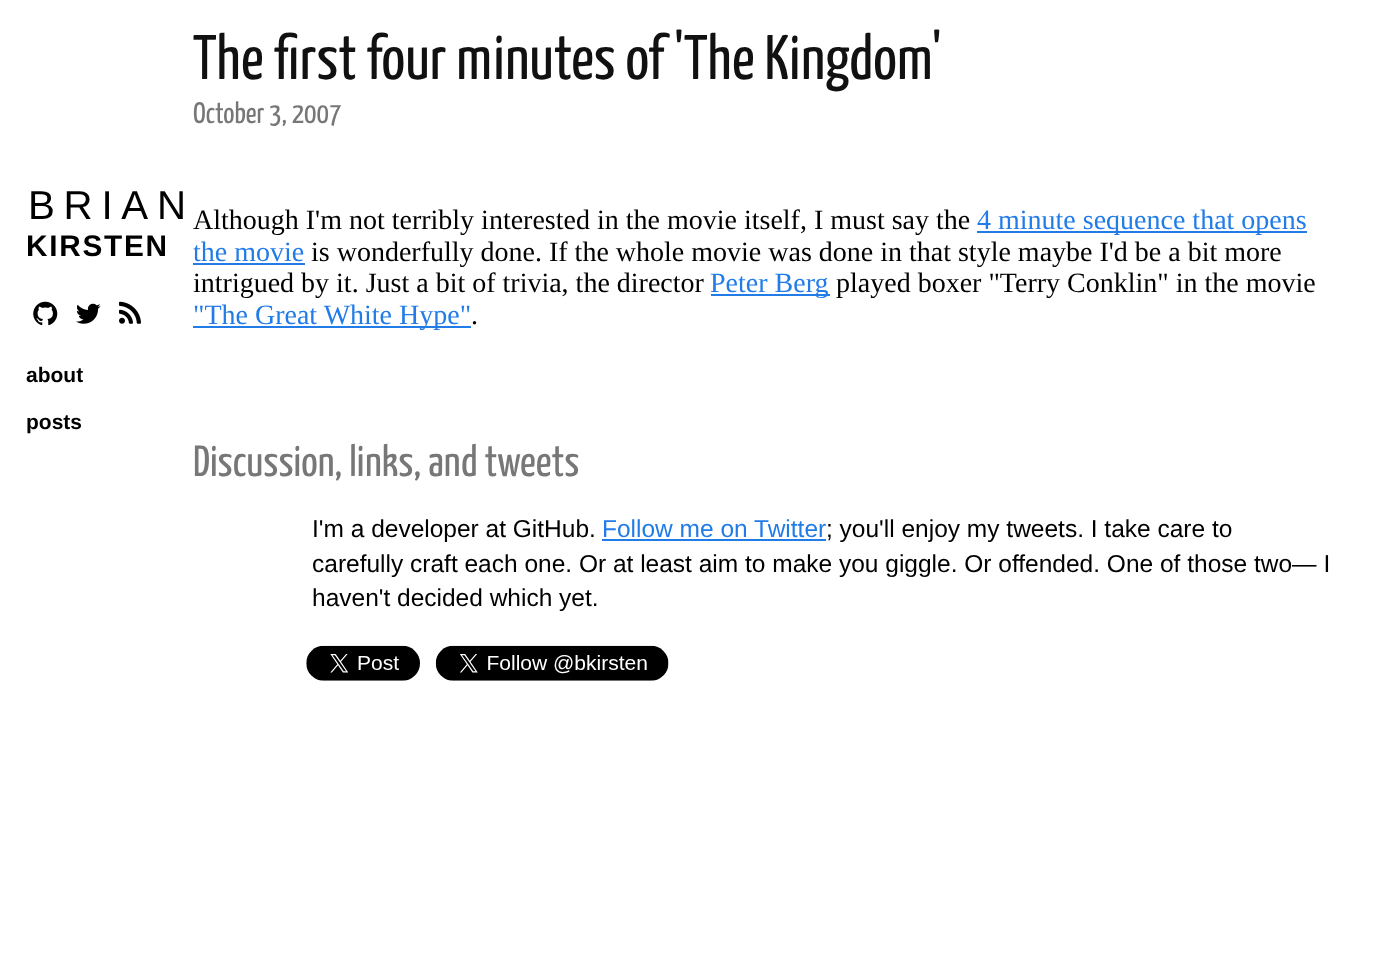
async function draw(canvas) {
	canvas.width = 1398;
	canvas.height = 954;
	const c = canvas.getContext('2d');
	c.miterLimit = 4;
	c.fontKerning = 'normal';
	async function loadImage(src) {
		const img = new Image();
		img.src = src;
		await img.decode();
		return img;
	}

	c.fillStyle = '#fff';
	c.fillRect(0, 0, 1398, 954);
	c.letterSpacing = '8.75px';
	c.font = '40.25px Liberation Sans';
	c.fillStyle = '#000';
	c.fillText('BRIAN', 28, 219);
	c.letterSpacing = '1.75px';
	c.font = 'bold 29.75px Liberation Sans';
	c.fillText('KIRSTEN', 26, 256);
	c.drawImage(await loadImage('img1.png'), 33, 301, 25, 25);
	c.drawImage(await loadImage('img2.png'), 76, 303, 25, 21);
	c.drawImage(await loadImage('img3.png'), 119, 301, 22, 23);
	c.letterSpacing = '0px';
	c.font = 'bold 21px Liberation Sans';
	c.fillText('about', 26, 382);
	c.fillText('posts', 26, 429);
	c.font = '200 63px Yanone Kaffeesatz';
	c.fillStyle = '#111';
	c.fillText('The first four minutes of \'The Kingdom\'', 193, 79);
	c.font = '200 29.75px Yanone Kaffeesatz';
	c.fillStyle = '#777';
	c.fillText('October 3, 2007', 193, 123);
	c.font = '28px Liberation Serif';
	c.fillStyle = '#000';
	c.fillText('Although I\'m not terribly interested in the movie itself, I must say the', 193, 229);
	c.fillStyle = '#227ce8';
	c.fillRect(977, 231, 330, 2);
	c.fillText('4 minute sequence that opens', 977, 229);
	c.fillText('the movie', 193, 261);
	c.fillRect(193, 263, 112, 2);
	c.fillStyle = '#000';
	c.fillText('is wonderfully done. If the whole movie was done in that style maybe I\'d be a bit more', 311, 261);
	c.fillText('intrigued by it. Just a bit of trivia, the director', 193, 292);
	c.fillStyle = '#227ce8';
	c.fillRect(711, 294, 119, 2);
	c.fillText('Peter Berg', 710, 292);
	c.fillStyle = '#000';
	c.fillText('played boxer "Terry Conklin" in the movie', 836, 292);
	c.fillStyle = '#227ce8';
	c.fillRect(193, 326, 278, 2);
	c.fillText('"The Great White Hype"', 193, 324);
	c.fillStyle = '#000';
	c.fillText('.', 471, 324);
	c.font = '200 43.75px Yanone Kaffeesatz';
	c.fillStyle = '#777';
	c.fillText('Discussion, links, and tweets', 193, 476);
	c.font = '24.5px Liberation Sans';
	c.fillStyle = '#000';
	c.fillText('I\'m a developer at GitHub.', 312, 537);
	c.fillStyle = '#227ce8';
	c.fillText('Follow me on Twitter', 602, 537);
	c.fillRect(602, 539, 224, 2);
	c.fillStyle = '#000';
	for (const [text, x, y] of [
		['; you\'ll enjoy my tweets. I take care to', 826, 537],
		['carefully craft each one. Or at least aim to make you giggle. Or offended. One of those two— I', 312, 572],
		['haven\'t decided which yet.', 312, 606],
	]) {
		c.fillText(text, x, y);
	}
	c.drawImage(await loadImage('img4.png'), 306, 645, 114, 36);
	c.drawImage(await loadImage('img5.png'), 435, 645, 234, 36);
}

draw(document.querySelector('canvas'));
